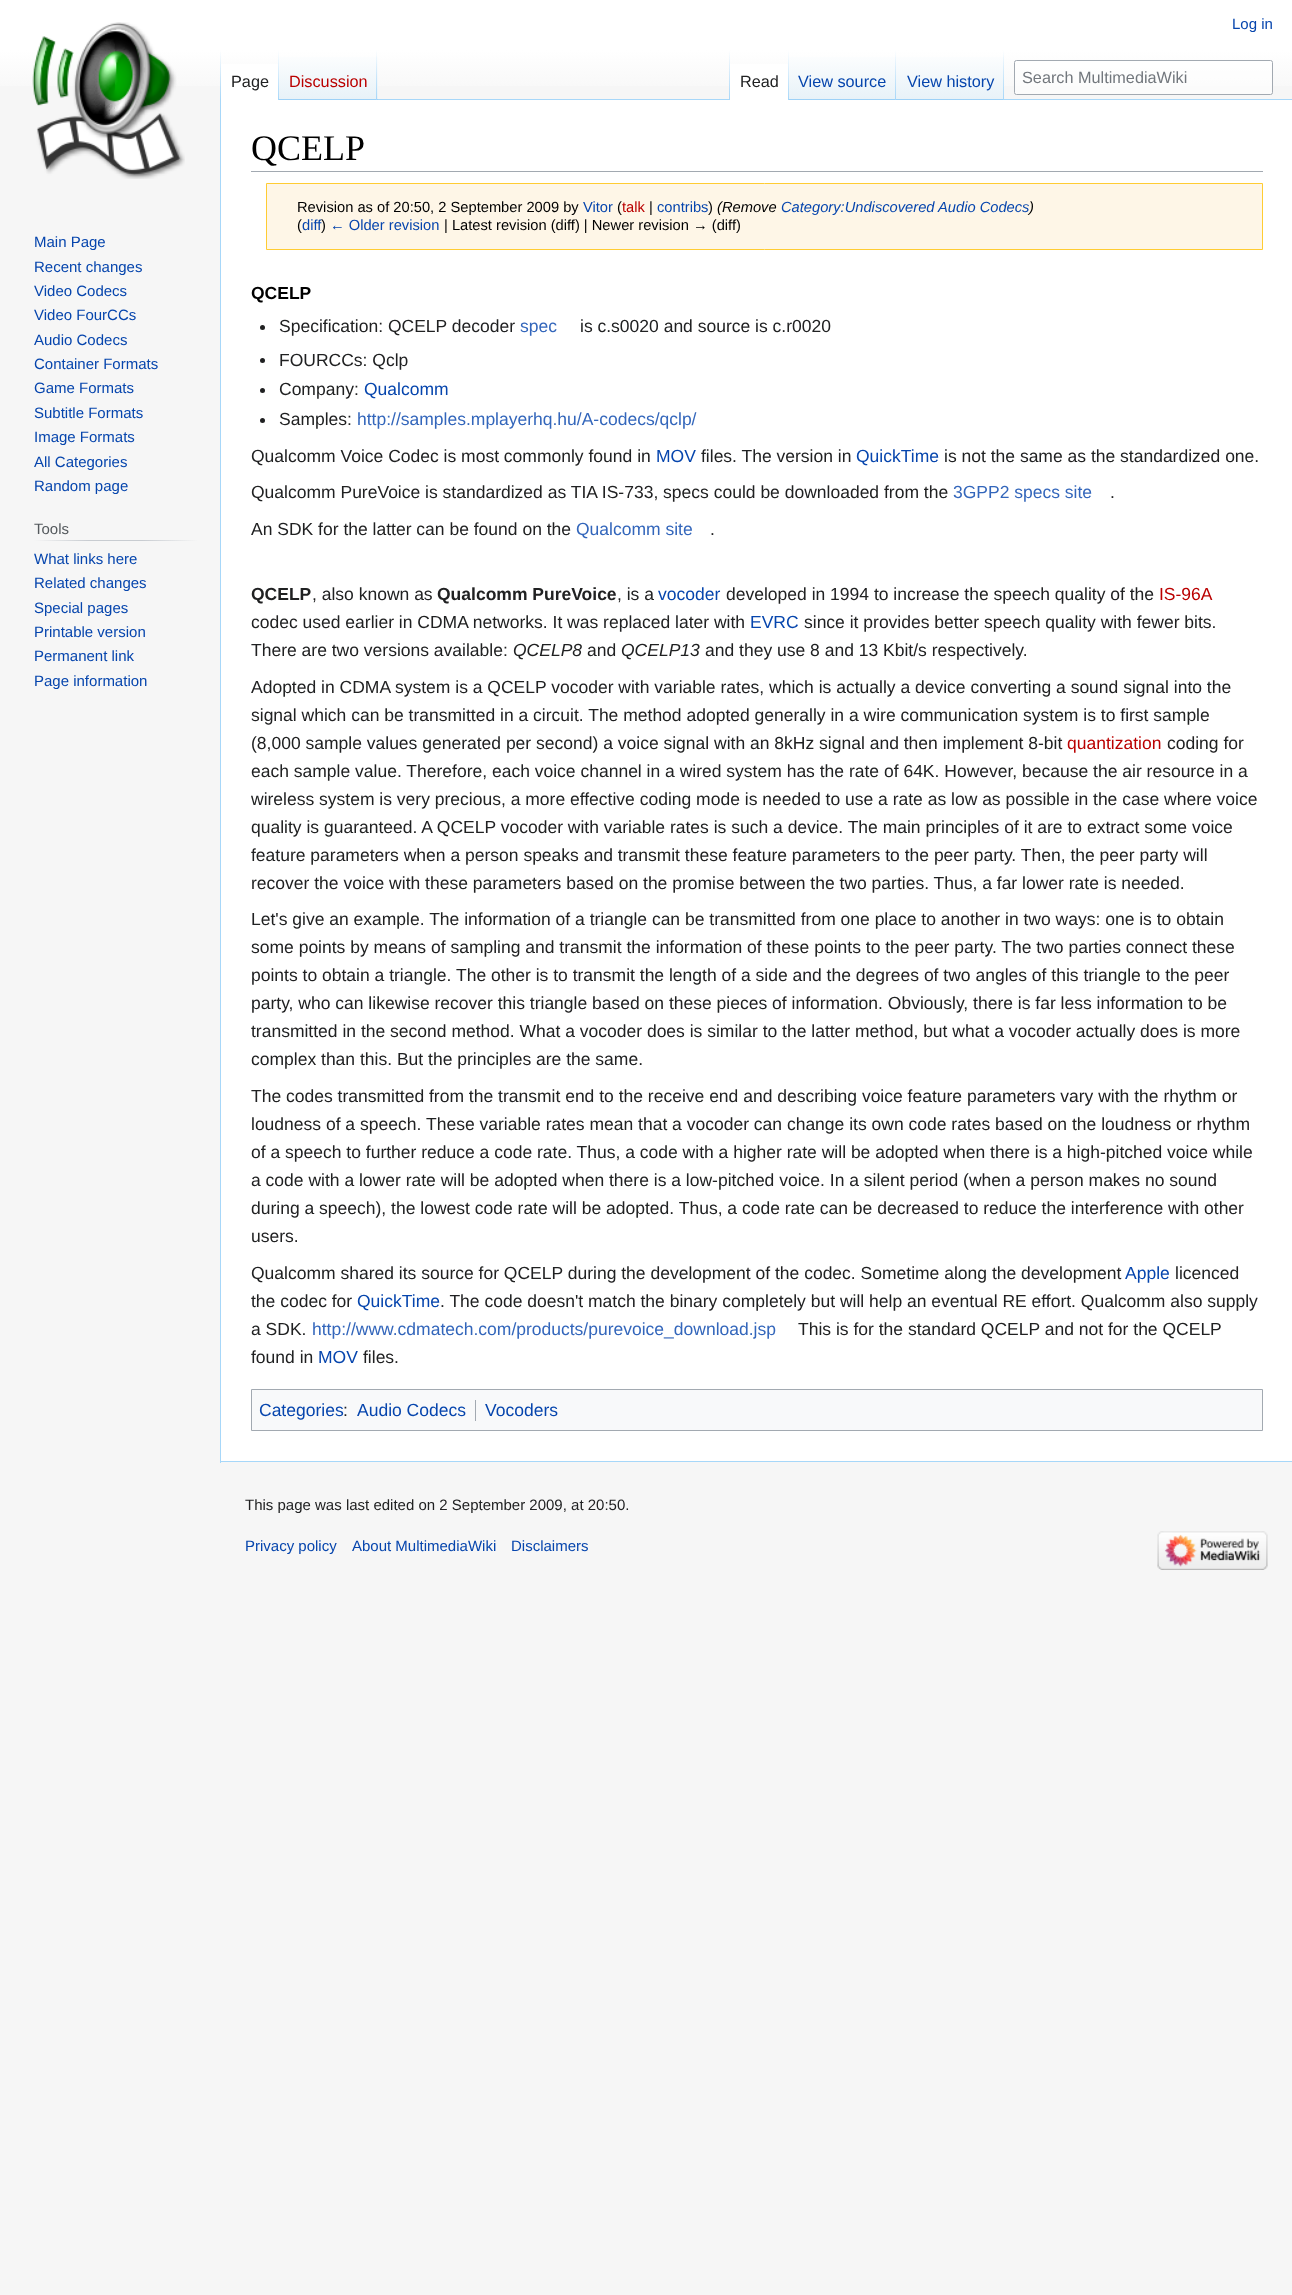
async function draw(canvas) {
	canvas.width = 1292;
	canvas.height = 2295;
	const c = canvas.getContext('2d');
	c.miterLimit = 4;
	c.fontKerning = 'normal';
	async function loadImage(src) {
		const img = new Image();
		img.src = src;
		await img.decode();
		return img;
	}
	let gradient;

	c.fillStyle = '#f6f6f6';
	c.fillRect(0, 0, 1292, 2295);
	gradient = c.createLinearGradient(646, 0, 646, 100);
	gradient.addColorStop(0.5, '#fff');
	gradient.addColorStop(1, '#f6f6f6');
	c.fillStyle = gradient;
	c.fillRect(0, 0, 1292, 86);
	c.font = '15px Liberation Sans';
	c.fillStyle = '#0645ad';
	c.fillText('Log in', 1232, 29);
	c.fillStyle = '#a7d7f9';
	c.fillRect(220, 1461, 1072, 1);
	c.fillRect(220, 99, 1, 1364);
	gradient = c.createLinearGradient(221, 50, 221, 100);
	gradient.addColorStop(0, '#a7d7f900');
	gradient.addColorStop(1, '#a7d7f9');
	c.fillStyle = gradient;
	c.fillRect(220, 50, 1, 50);
	c.fillStyle = '#fff';
	c.fillRect(221, 64, 57, 36);
	gradient = c.createLinearGradient(278, 50, 278, 100);
	gradient.addColorStop(0, '#fff');
	gradient.addColorStop(1, '#a7d7f9');
	c.fillStyle = gradient;
	c.fillRect(278, 50, 1, 50);
	c.font = '16.25px Liberation Sans';
	c.fillStyle = '#202122';
	c.fillText('Page', 231, 87);
	gradient = c.createLinearGradient(328, 100, 328, 50);
	gradient.addColorStop(0, '#77c1f6');
	gradient.addColorStop(0.03, '#e8f2f8');
	gradient.addColorStop(1, '#fff');
	c.fillStyle = gradient;
	c.fillRect(279, 57, 99, 43);
	gradient = c.createLinearGradient(377, 50, 377, 100);
	gradient.addColorStop(0, '#a7d7f900');
	gradient.addColorStop(1, '#a7d7f9');
	c.fillStyle = gradient;
	c.fillRect(376, 50, 1, 50);
	c.fillStyle = '#ba0000';
	c.fillText('Discussion', 289, 87);
	c.fillStyle = '#a7d7f9';
	c.fillRect(378, 99, 914, 1);
	gradient = c.createLinearGradient(729, 50, 729, 100);
	gradient.addColorStop(0, '#a7d7f900');
	gradient.addColorStop(1, '#a7d7f9');
	c.fillStyle = gradient;
	c.fillRect(729, 50, 1, 50);
	c.fillStyle = '#fff';
	c.fillRect(730, 64, 58, 36);
	gradient = c.createLinearGradient(788, 50, 788, 100);
	gradient.addColorStop(0, '#fff');
	gradient.addColorStop(1, '#a7d7f9');
	c.fillStyle = gradient;
	c.fillRect(788, 50, 1, 50);
	c.fillStyle = '#202122';
	c.fillText('Read', 740, 87);
	gradient = c.createLinearGradient(843, 100, 843, 50);
	gradient.addColorStop(0, '#77c1f6');
	gradient.addColorStop(0.03, '#e8f2f8');
	gradient.addColorStop(1, '#fff');
	c.fillStyle = gradient;
	c.fillRect(789, 57, 107, 43);
	gradient = c.createLinearGradient(896, 50, 896, 100);
	gradient.addColorStop(0, '#a7d7f900');
	gradient.addColorStop(1, '#a7d7f9');
	c.fillStyle = gradient;
	c.fillRect(895, 50, 1, 50);
	c.fillStyle = '#0645ad';
	c.fillText('View source', 798, 87);
	gradient = c.createLinearGradient(950, 100, 950, 50);
	gradient.addColorStop(0, '#77c1f6');
	gradient.addColorStop(0.03, '#e8f2f8');
	gradient.addColorStop(1, '#fff');
	c.fillStyle = gradient;
	c.fillRect(896, 57, 108, 43);
	gradient = c.createLinearGradient(1003, 50, 1003, 100);
	gradient.addColorStop(0, '#a7d7f900');
	gradient.addColorStop(1, '#a7d7f9');
	c.fillStyle = gradient;
	c.fillRect(1003, 50, 1, 50);
	c.fillStyle = '#0645ad';
	c.fillText('View history', 907, 87);
	c.fillStyle = '#ffffff80';
	c.beginPath();
	c.roundRect(1014.5, 60.5, 258, 34, 2);
	c.fill();
	c.strokeStyle = '#a2a9b1';
	c.stroke();
	c.fillStyle = '#72777d';
	c.fillText('Search MultimediaWiki', 1022, 83);
	c.drawImage(await loadImage('img1.png'), 32, 22, 153, 157);
	c.font = '15px Liberation Sans';
	c.fillStyle = '#0645ad';
	for (const [text, x, y] of [
		['Main Page', 34, 247],
		['Recent changes', 34, 272],
		['Video Codecs', 34, 296],
		['Video FourCCs', 34, 320],
		['Audio Codecs', 34, 345],
		['Container Formats', 34, 369],
		['Game Formats', 34, 393],
		['Subtitle Formats', 34, 418],
		['Image Formats', 34, 442],
		['All Categories', 34, 467],
		['Random page', 34, 491],
	]) {
		c.fillText(text, x, y);
	}
	gradient = c.createLinearGradient(34, 541, 198, 541);
	gradient.addColorStop(0, '#f6f6f6');
	gradient.addColorStop(0.33, '#c8ccd1');
	gradient.addColorStop(0.66, '#c8ccd1');
	gradient.addColorStop(1, '#f6f6f6');
	c.fillStyle = gradient;
	c.fillRect(34, 540, 164, 1);
	c.fillStyle = '#54595d';
	c.fillText('Tools', 34, 534);
	c.fillStyle = '#0645ad';
	for (const [text, x, y] of [
		['What links here', 34, 564],
		['Related changes', 34, 588],
		['Special pages', 34, 613],
		['Printable version', 34, 637],
		['Permanent link', 34, 661],
		['Page information', 34, 686],
	]) {
		c.fillText(text, x, y);
	}
	c.fillStyle = '#fff';
	c.fillRect(221, 100, 1071, 1361);
	c.fillStyle = '#a2a9b1';
	c.fillRect(251, 171, 1012, 1);
	c.font = '36px Liberation Serif';
	c.fillStyle = '#000';
	c.fillText('QCELP', 251, 160);
	c.fillStyle = '#fef6e7';
	c.beginPath();
	c.rect(266.5, 183.5, 996, 66);
	c.fill();
	c.strokeStyle = '#fc3';
	c.stroke();
	c.font = '14.7px Liberation Sans';
	c.fillStyle = '#000';
	c.fillText('Revision as of 20:50, 2 September 2009 by', 297, 212);
	c.fillStyle = '#0645ad';
	c.fillText('Vitor', 583, 212);
	c.fillStyle = '#000';
	c.fillText('(', 617, 212);
	c.fillStyle = '#ba0000';
	c.fillText('talk', 622, 212);
	c.fillStyle = '#000';
	c.fillText('|', 649, 212);
	c.fillStyle = '#0645ad';
	c.fillText('contribs', 657, 212);
	c.fillStyle = '#000';
	c.fillText(')', 708, 212);
	c.font = 'italic 14.7px Liberation Sans';
	c.fillText('(Remove', 717, 212);
	c.fillStyle = '#0645ad';
	c.fillText('Category:Undiscovered Audio Codecs', 781, 212);
	c.fillStyle = '#000';
	c.fillText(')', 1029, 212);
	c.font = '14.7px Liberation Sans';
	c.fillText('(', 297, 230);
	c.fillStyle = '#0645ad';
	c.fillText('diff', 302, 230);
	c.fillStyle = '#000';
	c.fillText(')', 321, 230);
	c.fillStyle = '#0645ad';
	c.fillText('← Older revision', 330, 230);
	c.fillStyle = '#000';
	c.fillText('| Latest revision (diff) | Newer revision → (diff)', 444, 230);
	c.font = 'bold 17.5px Liberation Sans';
	c.fillText('QCELP', 251, 299);
	c.fillStyle = '#202122';
	c.beginPath();
	c.arc(262.5, 327.5, 2.5, 0, 2 * Math.PI);
	c.fill();
	c.font = '17.5px Liberation Sans';
	c.fillText('Specification: QCELP decoder', 279, 332);
	c.fillStyle = '#36b';
	c.fillText('spec', 520, 332);
	c.fillStyle = '#202122';
	c.fillText('is c.s0020 and source is c.r0020', 580, 332);
	c.beginPath();
	c.arc(262.5, 360.5, 2.5, 0, 2 * Math.PI);
	c.fill();
	c.fillText('FOURCCs: Qclp', 279, 366);
	c.beginPath();
	c.arc(262.5, 390.5, 2.5, 0, 2 * Math.PI);
	c.fill();
	c.fillText('Company:', 279, 395);
	c.fillStyle = '#0645ad';
	c.fillText('Qualcomm', 364, 395);
	c.fillStyle = '#202122';
	c.beginPath();
	c.arc(262.5, 420.5, 2.5, 0, 2 * Math.PI);
	c.fill();
	c.fillText('Samples:', 279, 425);
	c.fillStyle = '#36b';
	c.fillText('http://samples.mplayerhq.hu/A-codecs/qclp/', 357, 425);
	c.fillStyle = '#202122';
	c.fillText('Qualcomm Voice Codec is most commonly found in', 251, 462);
	c.fillStyle = '#0645ad';
	c.fillText('MOV', 656, 462);
	c.fillStyle = '#202122';
	c.fillText('files. The version in', 701, 462);
	c.fillStyle = '#0645ad';
	c.fillText('QuickTime', 856, 462);
	c.fillStyle = '#202122';
	c.fillText('is not the same as the standardized one.', 944, 462);
	c.fillText('Qualcomm PureVoice is standardized as TIA IS-733, specs could be downloaded from the', 251, 498);
	c.fillStyle = '#36b';
	c.fillText('3GPP2 specs site', 953, 498);
	c.fillStyle = '#202122';
	c.fillText('.', 1110, 498);
	c.fillText('An SDK for the latter can be found on the', 251, 535);
	c.fillStyle = '#36b';
	c.fillText('Qualcomm site', 576, 535);
	c.fillStyle = '#202122';
	c.fillText('.', 710, 535);
	c.font = 'bold 17.5px Liberation Sans';
	c.fillText('QCELP', 251, 600);
	c.font = '17.5px Liberation Sans';
	c.fillText(', also known as', 312, 600);
	c.font = 'bold 17.5px Liberation Sans';
	c.fillText('Qualcomm PureVoice', 437, 600);
	c.font = '17.5px Liberation Sans';
	c.fillText(', is a', 617, 600);
	c.fillStyle = '#0645ad';
	c.fillText('vocoder', 658, 600);
	c.fillStyle = '#202122';
	c.fillText('developed in 1994 to increase the speech quality of the', 726, 600);
	c.fillStyle = '#ba0000';
	c.fillText('IS-96A', 1159, 600);
	c.fillStyle = '#202122';
	c.fillText('codec used earlier in CDMA networks. It was replaced later with', 251, 628);
	c.fillStyle = '#0645ad';
	c.fillText('EVRC', 750, 628);
	c.fillStyle = '#202122';
	c.fillText('since it provides better speech quality with fewer bits.', 804, 628);
	c.fillText('There are two versions available:', 251, 656);
	c.font = 'italic 17.5px Liberation Sans';
	c.fillText('QCELP8', 513, 656);
	c.font = '17.5px Liberation Sans';
	c.fillText('and', 587, 656);
	c.font = 'italic 17.5px Liberation Sans';
	c.fillText('QCELP13', 621, 656);
	c.font = '17.5px Liberation Sans';
	for (const [text, x, y] of [
		['and they use 8 and 13 Kbit/s respectively.', 705, 656],
		['Adopted in CDMA system is a QCELP vocoder with variable rates, which is actually a device converting a sound signal into the', 251, 693],
		['signal which can be transmitted in a circuit. The method adopted generally in a wire communication system is to first sample', 251, 721],
		['(8,000 sample values generated per second) a voice signal with an 8kHz signal and then implement 8-bit', 251, 749],
	]) {
		c.fillText(text, x, y);
	}
	c.fillStyle = '#ba0000';
	c.fillText('quantization', 1067, 749);
	c.fillStyle = '#202122';
	for (const [text, x, y] of [
		['coding for', 1167, 749],
		['each sample value. Therefore, each voice channel in a wired system has the rate of 64K. However, because the air resource in a', 251, 777],
		['wireless system is very precious, a more effective coding mode is needed to use a rate as low as possible in the case where voice', 251, 805],
		['quality is guaranteed. A QCELP vocoder with variable rates is such a device. The main principles of it are to extract some voice', 251, 833],
		['feature parameters when a person speaks and transmit these feature parameters to the peer party. Then, the peer party will', 251, 861],
		['recover the voice with these parameters based on the promise between the two parties. Thus, a far lower rate is needed.', 251, 889],
		['Let\'s give an example. The information of a triangle can be transmitted from one place to another in two ways: one is to obtain', 251, 925],
		['some points by means of sampling and transmit the information of these points to the peer party. The two parties connect these', 251, 953],
		['points to obtain a triangle. The other is to transmit the length of a side and the degrees of two angles of this triangle to the peer', 251, 981],
		['party, who can likewise recover this triangle based on these pieces of information. Obviously, there is far less information to be', 251, 1009],
		['transmitted in the second method. What a vocoder does is similar to the latter method, but what a vocoder actually does is more', 251, 1037],
		['complex than this. But the principles are the same.', 251, 1065],
		['The codes transmitted from the transmit end to the receive end and describing voice feature parameters vary with the rhythm or', 251, 1102],
		['loudness of a speech.', 251, 1130],
		['These variable rates mean that a vocoder can change its own code rates based on the loudness or rhythm', 426, 1130],
		['of a speech to further reduce a code rate. Thus, a code with a higher rate will be adopted when there is a high-pitched voice while', 251, 1158],
		['a code with a lower rate will be adopted when there is a low-pitched voice. In a silent period (when a person makes no sound', 251, 1186],
		['during a speech), the lowest code rate will be adopted. Thus, a code rate can be decreased to reduce the interference with other', 251, 1214],
		['users.', 251, 1242],
		['Qualcomm shared its source for QCELP during the development of the codec. Sometime along the development', 251, 1279],
	]) {
		c.fillText(text, x, y);
	}
	c.fillStyle = '#0645ad';
	c.fillText('Apple', 1125, 1279);
	c.fillStyle = '#202122';
	c.fillText('licenced', 1175, 1279);
	c.fillText('the codec for', 251, 1307);
	c.fillStyle = '#0645ad';
	c.fillText('QuickTime', 357, 1307);
	c.fillStyle = '#202122';
	c.fillText('. The code doesn\'t match the binary completely but will help an eventual RE effort. Qualcomm also supply', 440, 1307);
	c.fillText('a SDK.', 251, 1335);
	c.fillStyle = '#36b';
	c.fillText('http://www.cdmatech.com/products/purevoice_download.jsp', 312, 1335);
	c.fillStyle = '#202122';
	c.fillText('This is for the standard QCELP and not for the QCELP', 798, 1335);
	c.fillText('found in', 251, 1363);
	c.fillStyle = '#0645ad';
	c.fillText('MOV', 318, 1363);
	c.fillStyle = '#202122';
	c.fillText('files.', 363, 1363);
	c.fillStyle = '#f8f9fa';
	c.beginPath();
	c.rect(251.5, 1389.5, 1011, 41);
	c.fill();
	c.strokeStyle = '#a2a9b1';
	c.stroke();
	c.fillStyle = '#0645ad';
	c.fillText('Categories', 259, 1416);
	c.fillStyle = '#202122';
	c.fillText(':', 343, 1416);
	c.fillStyle = '#0645ad';
	c.fillText('Audio Codecs', 357, 1416);
	c.fillStyle = '#a2a9b1';
	c.fillRect(475, 1400, 1, 21);
	c.fillStyle = '#0645ad';
	c.fillText('Vocoders', 485, 1416);
	c.font = '15px Liberation Sans';
	c.fillStyle = '#202122';
	c.fillText('This page was last edited on 2 September 2009, at 20:50.', 245, 1510);
	c.fillStyle = '#0645ad';
	for (const [text, x, y] of [
		['Privacy policy', 245, 1551],
		['About MultimediaWiki', 352, 1551],
		['Disclaimers', 511, 1551],
	]) {
		c.fillText(text, x, y);
	}
	c.drawImage(await loadImage('img2.png'), 1157, 1531, 111, 39);
}

draw(document.querySelector('canvas'));
